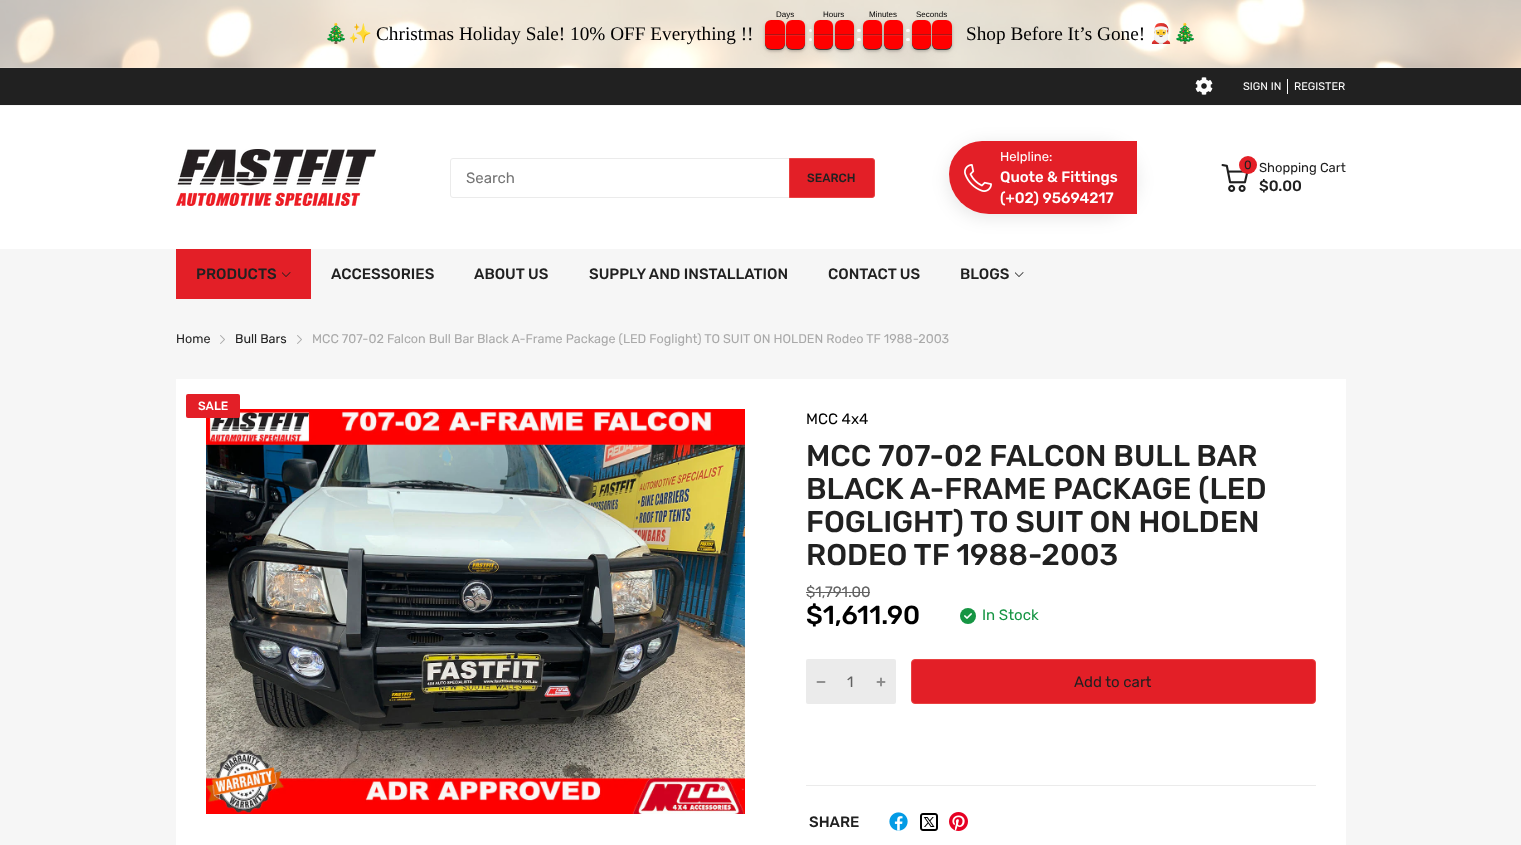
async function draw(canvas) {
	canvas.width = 1521;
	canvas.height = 845;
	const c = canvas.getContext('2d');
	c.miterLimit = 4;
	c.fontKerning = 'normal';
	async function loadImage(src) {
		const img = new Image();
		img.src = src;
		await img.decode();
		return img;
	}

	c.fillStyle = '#f6f6f6';
	c.fillRect(0, 0, 1521, 845);
	c.drawImage(await loadImage('img1.png'), 0, 0, 1521, 68);
	c.fillStyle = '#0000000d';
	c.filter = 'blur(4px)';
	c.beginPath();
	c.roundRect(765, 23, 20, 29, 6);
	c.fill();
	c.filter = 'none';
	c.fillStyle = '#0000003d';
	c.filter = 'blur(1.5px)';
	c.beginPath();
	c.roundRect(765, 22, 20, 29, 6);
	c.fill();
	c.filter = 'none';
	c.fillStyle = '#00000066';
	c.filter = 'blur(0.5px)';
	c.beginPath();
	c.roundRect(765, 36, 20, 14, 6);
	c.fill();
	c.filter = 'none';
	c.fillStyle = '#0000000d';
	c.filter = 'blur(4px)';
	c.beginPath();
	c.roundRect(786, 23, 19, 29, 6);
	c.fill();
	c.filter = 'none';
	c.fillStyle = '#0000003d';
	c.filter = 'blur(1.5px)';
	c.beginPath();
	c.roundRect(786, 22, 19, 29, 6);
	c.fill();
	c.filter = 'none';
	c.fillStyle = '#00000066';
	c.filter = 'blur(0.5px)';
	c.beginPath();
	c.roundRect(786, 36, 19, 14, 6);
	c.fill();
	c.filter = 'none';
	c.fillStyle = '#f00';
	c.beginPath();
	c.roundRect(765, 20, 20, 15, [6, 6, 0, 0]);
	c.fill();
	c.fillStyle = '#33333366';
	c.fillRect(765, 34, 20, 1);
	c.fillStyle = '#00000066';
	c.filter = 'blur(0.5px)';
	c.beginPath();
	c.roundRect(765, 36, 20, 14, 6);
	c.fill();
	c.filter = 'none';
	c.fillStyle = '#f00';
	c.beginPath();
	c.roundRect(765, 35, 20, 14, [0, 0, 6, 6]);
	c.fill();
	c.fillStyle = '#cccccc1a';
	c.fillRect(765, 35, 20, 1);
	c.fillStyle = '#fff';
	c.beginPath();
	c.arc(810.5, 30.5, 1.5, 0, 2 * Math.PI);
	c.fill();
	c.beginPath();
	c.arc(810.5, 39.5, 1.5, 0, 2 * Math.PI);
	c.fill();
	c.fillStyle = '#0000000d';
	c.filter = 'blur(4px)';
	c.beginPath();
	c.roundRect(814, 23, 19, 29, 6);
	c.fill();
	c.filter = 'none';
	c.fillStyle = '#f00';
	c.beginPath();
	c.roundRect(786, 20, 19, 15, [6, 6, 0, 0]);
	c.fill();
	c.fillStyle = '#33333366';
	c.fillRect(786, 34, 19, 1);
	c.fillStyle = '#00000066';
	c.filter = 'blur(0.5px)';
	c.beginPath();
	c.roundRect(786, 36, 19, 14, 6);
	c.fill();
	c.filter = 'none';
	c.fillStyle = '#f00';
	c.beginPath();
	c.roundRect(786, 35, 19, 14, [0, 0, 6, 6]);
	c.fill();
	c.fillStyle = '#cccccc1a';
	c.fillRect(786, 35, 19, 1);
	c.font = '8px Liberation Sans';
	c.fillStyle = '#000';
	c.fillText('Days', 776, 17);
	c.fillStyle = '#0000003d';
	c.filter = 'blur(1.5px)';
	c.beginPath();
	c.roundRect(814, 22, 19, 29, 6);
	c.fill();
	c.filter = 'none';
	c.fillStyle = '#00000066';
	c.filter = 'blur(0.5px)';
	c.beginPath();
	c.roundRect(814, 36, 19, 14, 6);
	c.fill();
	c.filter = 'none';
	c.fillStyle = '#0000000d';
	c.filter = 'blur(4px)';
	c.beginPath();
	c.roundRect(835, 23, 19, 29, 6);
	c.fill();
	c.filter = 'none';
	c.fillStyle = '#0000003d';
	c.filter = 'blur(1.5px)';
	c.beginPath();
	c.roundRect(835, 22, 19, 29, 6);
	c.fill();
	c.filter = 'none';
	c.fillStyle = '#00000066';
	c.filter = 'blur(0.5px)';
	c.beginPath();
	c.roundRect(835, 36, 19, 14, 6);
	c.fill();
	c.filter = 'none';
	c.fillStyle = '#f00';
	c.beginPath();
	c.roundRect(814, 20, 19, 15, [6, 6, 0, 0]);
	c.fill();
	c.fillStyle = '#33333366';
	c.fillRect(814, 34, 19, 1);
	c.fillStyle = '#00000066';
	c.filter = 'blur(0.5px)';
	c.beginPath();
	c.roundRect(814, 36, 19, 14, 6);
	c.fill();
	c.filter = 'none';
	c.fillStyle = '#f00';
	c.beginPath();
	c.roundRect(814, 35, 19, 14, [0, 0, 6, 6]);
	c.fill();
	c.fillStyle = '#cccccc1a';
	c.fillRect(814, 35, 19, 1);
	c.fillStyle = '#fff';
	c.beginPath();
	c.roundRect(857, 29, 4, 3, 1.5);
	c.fill();
	c.beginPath();
	c.roundRect(857, 38, 4, 3, 1.5);
	c.fill();
	c.fillStyle = '#0000000d';
	c.filter = 'blur(4px)';
	c.beginPath();
	c.roundRect(863, 23, 19, 29, 6);
	c.fill();
	c.filter = 'none';
	c.fillStyle = '#f00';
	c.beginPath();
	c.roundRect(835, 20, 19, 15, [6, 6, 0, 0]);
	c.fill();
	c.fillStyle = '#33333366';
	c.fillRect(835, 34, 19, 1);
	c.fillStyle = '#00000066';
	c.filter = 'blur(0.5px)';
	c.beginPath();
	c.roundRect(835, 36, 19, 14, 6);
	c.fill();
	c.filter = 'none';
	c.fillStyle = '#f00';
	c.beginPath();
	c.roundRect(835, 35, 19, 14, [0, 0, 6, 6]);
	c.fill();
	c.fillStyle = '#cccccc1a';
	c.fillRect(835, 35, 19, 1);
	c.fillStyle = '#000';
	c.fillText('Hours', 823, 17);
	c.fillStyle = '#0000003d';
	c.filter = 'blur(1.5px)';
	c.beginPath();
	c.roundRect(863, 22, 19, 29, 6);
	c.fill();
	c.filter = 'none';
	c.fillStyle = '#00000066';
	c.filter = 'blur(0.5px)';
	c.beginPath();
	c.roundRect(863, 36, 19, 14, 6);
	c.fill();
	c.filter = 'none';
	c.fillStyle = '#0000000d';
	c.filter = 'blur(4px)';
	c.beginPath();
	c.roundRect(884, 23, 19, 29, 6);
	c.fill();
	c.filter = 'none';
	c.fillStyle = '#0000003d';
	c.filter = 'blur(1.5px)';
	c.beginPath();
	c.roundRect(884, 22, 19, 29, 6);
	c.fill();
	c.filter = 'none';
	c.fillStyle = '#00000066';
	c.filter = 'blur(0.5px)';
	c.beginPath();
	c.roundRect(884, 36, 19, 14, 6);
	c.fill();
	c.filter = 'none';
	c.fillStyle = '#f00';
	c.beginPath();
	c.roundRect(863, 20, 19, 15, [6, 6, 0, 0]);
	c.fill();
	c.fillStyle = '#33333366';
	c.fillRect(863, 34, 19, 1);
	c.fillStyle = '#00000066';
	c.filter = 'blur(0.5px)';
	c.beginPath();
	c.roundRect(863, 36, 19, 14, 6);
	c.fill();
	c.filter = 'none';
	c.fillStyle = '#f00';
	c.beginPath();
	c.roundRect(863, 35, 19, 14, [0, 0, 6, 6]);
	c.fill();
	c.fillStyle = '#cccccc1a';
	c.fillRect(863, 35, 19, 1);
	c.fillStyle = '#fff';
	c.beginPath();
	c.roundRect(906, 29, 4, 3, 1.5);
	c.fill();
	c.beginPath();
	c.roundRect(906, 38, 4, 3, 1.5);
	c.fill();
	c.fillStyle = '#0000000d';
	c.filter = 'blur(4px)';
	c.beginPath();
	c.roundRect(912, 23, 19, 29, 6);
	c.fill();
	c.filter = 'none';
	c.fillStyle = '#f00';
	c.beginPath();
	c.roundRect(884, 20, 19, 15, [6, 6, 0, 0]);
	c.fill();
	c.fillStyle = '#33333366';
	c.fillRect(884, 34, 19, 1);
	c.fillStyle = '#00000066';
	c.filter = 'blur(0.5px)';
	c.beginPath();
	c.roundRect(884, 36, 19, 14, 6);
	c.fill();
	c.filter = 'none';
	c.fillStyle = '#f00';
	c.beginPath();
	c.roundRect(884, 35, 19, 14, [0, 0, 6, 6]);
	c.fill();
	c.fillStyle = '#cccccc1a';
	c.fillRect(884, 35, 19, 1);
	c.fillStyle = '#000';
	c.fillText('Minutes', 869, 17);
	c.fillStyle = '#0000003d';
	c.filter = 'blur(1.5px)';
	c.beginPath();
	c.roundRect(912, 22, 19, 29, 6);
	c.fill();
	c.filter = 'none';
	c.fillStyle = '#00000066';
	c.filter = 'blur(0.5px)';
	c.beginPath();
	c.roundRect(912, 36, 19, 14, 6);
	c.fill();
	c.filter = 'none';
	c.fillStyle = '#0000000d';
	c.filter = 'blur(4px)';
	c.beginPath();
	c.roundRect(932, 23, 20, 29, 6);
	c.fill();
	c.filter = 'none';
	c.fillStyle = '#0000003d';
	c.filter = 'blur(1.5px)';
	c.beginPath();
	c.roundRect(932, 22, 20, 29, 6);
	c.fill();
	c.filter = 'none';
	c.fillStyle = '#00000066';
	c.filter = 'blur(0.5px)';
	c.beginPath();
	c.roundRect(932, 36, 20, 14, 6);
	c.fill();
	c.filter = 'none';
	c.fillStyle = '#f00';
	c.beginPath();
	c.roundRect(912, 20, 19, 15, [6, 6, 0, 0]);
	c.fill();
	c.fillStyle = '#33333366';
	c.fillRect(912, 34, 19, 1);
	c.fillStyle = '#00000066';
	c.filter = 'blur(0.5px)';
	c.beginPath();
	c.roundRect(912, 36, 19, 14, 6);
	c.fill();
	c.filter = 'none';
	c.fillStyle = '#f00';
	c.beginPath();
	c.roundRect(912, 35, 19, 14, [0, 0, 6, 6]);
	c.fill();
	c.fillStyle = '#cccccc1a';
	c.fillRect(912, 35, 19, 1);
	c.fillStyle = '#f00';
	c.beginPath();
	c.roundRect(932, 20, 20, 15, [6, 6, 0, 0]);
	c.fill();
	c.fillStyle = '#33333366';
	c.fillRect(932, 34, 20, 1);
	c.fillStyle = '#00000066';
	c.filter = 'blur(0.5px)';
	c.beginPath();
	c.roundRect(932, 36, 20, 14, 6);
	c.fill();
	c.filter = 'none';
	c.fillStyle = '#f00';
	c.beginPath();
	c.roundRect(932, 35, 20, 14, [0, 0, 6, 6]);
	c.fill();
	c.fillStyle = '#cccccc1a';
	c.fillRect(932, 35, 20, 1);
	c.fillStyle = '#000';
	c.fillText('Seconds', 916, 17);
	c.font = '19.25px Noto Color Emoji';
	c.fillText('🎄✨', 324, 40);
	c.font = '19.25px Liberation Serif';
	c.fillText('Christmas Holiday Sale! 10% OFF Everything !!', 376, 40);
	c.fillText('Shop Before It’s Gone!', 966, 40);
	c.font = '19.25px Noto Color Emoji';
	c.fillText('🎅🎄', 1149, 40);
	c.fillStyle = '#212121';
	c.fillRect(0, 68, 1521, 37);
	c.drawImage(await loadImage('img2.png'), 1195, 77, 18, 18);
	c.font = '11px Rubik';
	c.fillStyle = '#fff';
	c.fillText('SIGN IN', 1243, 90);
	c.fillRect(1287, 79, 1, 15);
	c.fillText('REGISTER', 1294, 90);
	c.fillRect(0, 106, 1521, 143);
	c.drawImage(await loadImage('img3.png'), 176, 149, 200, 57);
	c.beginPath();
	c.roundRect(450.5, 158.5, 424, 39, 2.5);
	c.strokeStyle = '#ebebeb';
	c.stroke();
	c.font = '15px Rubik';
	c.fillStyle = '#757575';
	c.fillText('Search', 466, 183);
	c.fillStyle = '#e31f27';
	c.beginPath();
	c.roundRect(789.5, 158.5, 85, 39, [0, 2.5, 2.5, 0]);
	c.fill();
	c.strokeStyle = '#e94141';
	c.stroke();
	c.font = '500 12px Rubik';
	c.fillStyle = '#212121';
	c.fillText('SEARCH', 807, 182);
	c.fillStyle = '#0000001a';
	c.filter = 'blur(9px)';
	c.beginPath();
	c.roundRect(949, 144, 188, 73, 40);
	c.fill();
	c.filter = 'none';
	c.fillStyle = '#e31f27';
	c.beginPath();
	c.roundRect(949, 141, 188, 73, [33, 0, 0, 40]);
	c.fill();
	c.drawImage(await loadImage('img4.png'), 964, 164, 28, 28);
	c.font = '13px Rubik';
	c.fillStyle = '#fff';
	c.fillText('Helpline:', 1000, 161);
	c.font = '500 15px Rubik';
	c.fillText('Quote & Fittings', 1000, 182);
	c.fillText('(+02) 95694217', 1000, 203);
	c.drawImage(await loadImage('img5.png'), 1221, 164, 28, 28);
	c.fillStyle = '#e31f27';
	c.beginPath();
	c.arc(1248, 165, 9, 0, 2 * Math.PI);
	c.fill();
	c.font = '12px Rubik';
	c.fillStyle = '#212121';
	c.fillText('0', 1244, 169);
	c.font = '13px Rubik';
	c.fillText('Shopping Cart', 1259, 172);
	c.font = '500 15px Rubik';
	c.fillText('$0.00', 1259, 191);
	c.fillStyle = '#e31f27';
	c.fillRect(176, 249, 135, 50);
	c.fillStyle = '#212121';
	c.fillText('PRODUCTS', 196, 279);
	c.drawImage(await loadImage('img6.png'), 282, 272, 9, 5);
	for (const [text, x, y] of [
		['ACCESSORIES', 331, 279],
		['ABOUT US', 474, 279],
		['SUPPLY AND INSTALLATION', 589, 279],
		['CONTACT US', 828, 279],
		['BLOGS', 960, 279],
	]) {
		c.fillText(text, x, y);
	}
	c.drawImage(await loadImage('img7.png'), 1015, 272, 9, 5);
	c.font = '12.6px Rubik';
	c.fillText('Home', 176, 343);
	c.drawImage(await loadImage('img8.png'), 220, 335, 5, 9);
	c.fillText('Bull Bars', 235, 343);
	c.drawImage(await loadImage('img8.png'), 297, 335, 5, 9);
	c.fillStyle = '#a9a9a9';
	c.fillText('MCC 707-02 Falcon Bull Bar Black A-Frame Package (LED Foglight) TO SUIT ON HOLDEN Rodeo TF 1988-2003', 312, 343);
	c.fillStyle = '#fff';
	c.fillRect(176, 379, 1170, 466);
	c.drawImage(await loadImage('img9.png'), 206, 409, 539, 405);
	c.fillStyle = '#e31f27';
	c.beginPath();
	c.roundRect(186, 394, 54, 24, 2);
	c.fill();
	c.font = '500 12px Rubik';
	c.fillStyle = '#fff';
	c.fillText('SALE', 198, 410);
	c.font = '15px Rubik';
	c.fillStyle = '#000';
	c.fillText('MCC 4x4', 806, 424);
	c.font = '500 30px Rubik';
	c.fillStyle = '#212121';
	for (const [text, x, y] of [
		['MCC 707-02 FALCON BULL BAR', 806, 466],
		['BLACK A-FRAME PACKAGE (LED', 806, 499],
		['FOGLIGHT) TO SUIT ON HOLDEN', 806, 532],
		['RODEO TF 1988-2003', 806, 565],
	]) {
		c.fillText(text, x, y);
	}
	c.font = '15px Rubik';
	c.fillStyle = '#626262';
	c.fillText('$1,791.00', 806, 597);
	c.fillRect(806, 592, 64, 1);
	c.font = '500 26px Rubik';
	c.fillStyle = '#000';
	c.fillText('$1,611.90', 806, 624);
	c.fillStyle = '#169543';
	c.beginPath();
	c.arc(968, 616, 8, 0, 2 * Math.PI);
	c.fill();
	c.drawImage(await loadImage('img10.png'), 964, 613, 8, 6);
	c.font = '15px Rubik';
	c.fillText('In Stock', 982, 620);
	c.fillStyle = '#ebebeb';
	c.beginPath();
	c.roundRect(806, 659, 90, 45, 2);
	c.fill();
	c.drawImage(await loadImage('img11.png'), 816, 681, 10, 2);
	c.fillStyle = '#626262';
	c.fillText('1', 847, 687);
	c.drawImage(await loadImage('img12.png'), 876, 677, 10, 10);
	c.fillStyle = '#e31f27';
	c.beginPath();
	c.roundRect(911.5, 659.5, 404, 44, 3.5);
	c.fill();
	c.stroke();
	c.fillStyle = '#212121';
	c.fillText('Add to cart', 1074, 687);
	c.fillStyle = '#ebebeb';
	c.fillRect(806, 785, 510, 1);
	c.font = '500 15px Rubik';
	c.fillStyle = '#212121';
	c.fillText('SHARE', 809, 827);
	c.drawImage(await loadImage('img13.png'), 889, 812, 19, 19);
	c.drawImage(await loadImage('img14.png'), 920, 813, 18, 18);
	c.drawImage(await loadImage('img15.png'), 949, 812, 19, 19);
}

draw(document.querySelector('canvas'));
